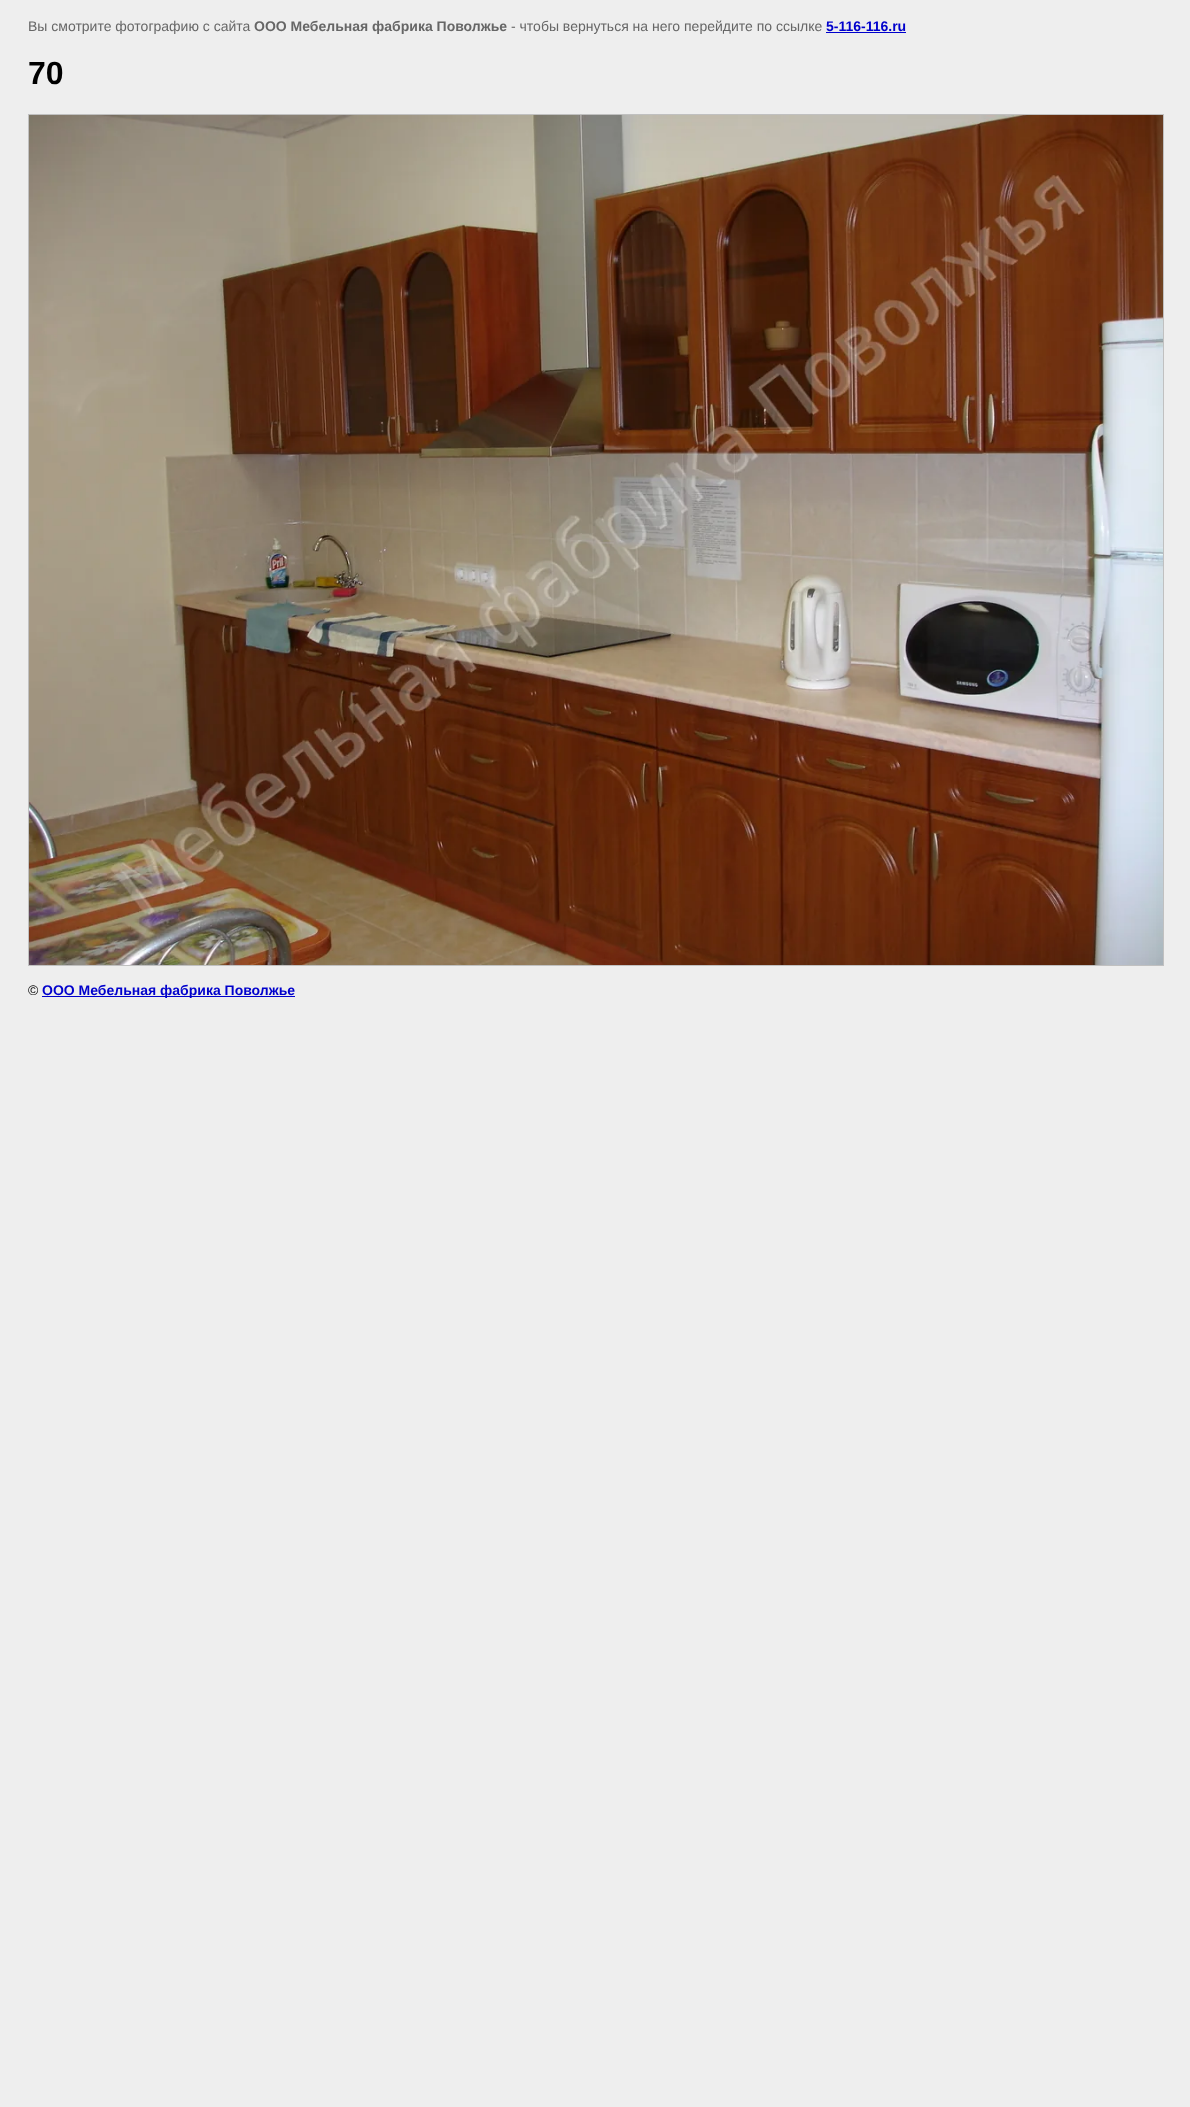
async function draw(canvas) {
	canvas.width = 1190;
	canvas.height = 2107;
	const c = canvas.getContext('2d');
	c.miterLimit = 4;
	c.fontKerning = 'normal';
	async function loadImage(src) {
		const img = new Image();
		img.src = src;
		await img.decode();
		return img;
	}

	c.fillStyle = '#eee';
	c.fillRect(0, 0, 1190, 2107);
	c.font = '14px Liberation Sans';
	c.fillStyle = '#666';
	c.fillText('Вы смотрите фотографию с сайта', 28, 31);
	c.font = 'bold 14px Liberation Sans';
	c.fillText('ООО Мебельная фабрика Поволжье', 254, 31);
	c.font = '14px Liberation Sans';
	c.fillText('- чтобы вернуться на него перейдите по ссылке', 511, 31);
	c.font = 'bold 14px Liberation Sans';
	c.fillStyle = '#00c';
	c.fillText('5-116-116.ru', 826, 31);
	c.fillRect(826, 32, 80, 1);
	c.font = 'bold 32px Liberation Sans';
	c.fillStyle = '#000';
	c.fillText('70', 28, 84);
	c.strokeStyle = '#c0c0c0';
	c.strokeRect(28.5, 114.5, 1135, 851);
	c.drawImage(await loadImage('img1.png'), 29, 115, 1134, 850);
	c.font = '14px Liberation Sans';
	c.fillText('©', 28, 995);
	c.fillStyle = '#00c';
	c.fillRect(42, 996, 253, 1);
	c.font = 'bold 14px Liberation Sans';
	c.fillText('ООО Мебельная фабрика Поволжье', 42, 995);
}

draw(document.querySelector('canvas'));
